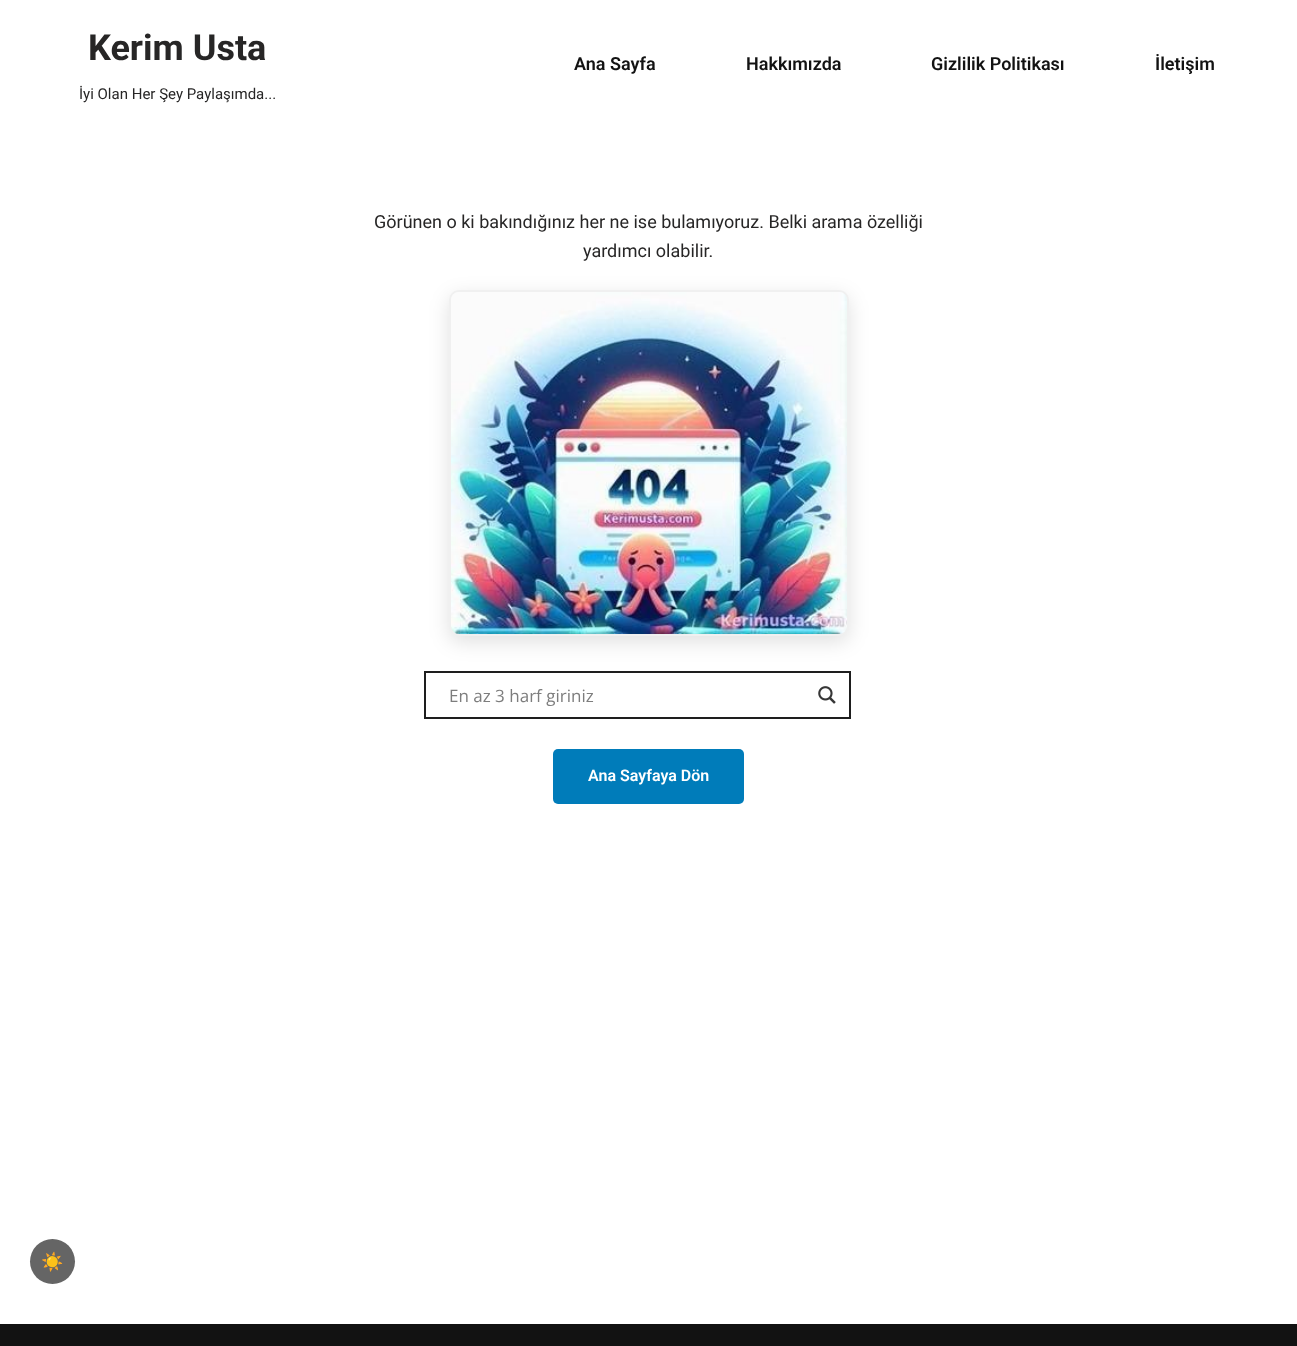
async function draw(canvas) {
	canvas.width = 1297;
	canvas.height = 1346;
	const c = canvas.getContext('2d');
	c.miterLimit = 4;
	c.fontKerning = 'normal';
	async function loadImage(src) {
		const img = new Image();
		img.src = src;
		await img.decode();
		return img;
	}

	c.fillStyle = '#fff';
	c.fillRect(0, 0, 1297, 1346);
	c.font = 'bold 36px Roboto';
	c.fillStyle = '#272626';
	c.fillText('Kerim Usta', 88, 60);
	c.font = '15px Roboto';
	c.fillText('İyi Olan Her Şey Paylaşımda...', 79, 99);
	c.font = '600 18px Roboto';
	c.fillStyle = '#121212';
	for (const [text, x, y] of [
		['Ana Sayfa', 574, 70],
		['Hakkımızda', 746, 70],
		['Gizlilik Politikası', 931, 70],
		['İletişim', 1155, 70],
	]) {
		c.fillText(text, x, y);
	}
	c.font = '18px Roboto';
	c.fillStyle = '#272626';
	c.fillText('Görünen o ki bakındığınız her ne ise bulamıyoruz. Belki arama özelliği', 374, 228);
	c.fillText('yardımcı olabilir.', 583, 257);
	c.fillStyle = '#0000001f';
	c.filter = 'blur(10px)';
	c.beginPath();
	c.roundRect(449, 296, 400, 346, 10);
	c.fill();
	c.filter = 'none';
	c.beginPath();
	c.roundRect(450, 291, 398, 344, 9);
	c.strokeStyle = '#f0f0f0';
	c.lineWidth = 2;
	c.stroke();
	c.drawImage(await loadImage('img1.png'), 451, 292, 396, 342);
	c.strokeStyle = '#1e1e1e';
	c.strokeRect(425, 672, 425, 46);
	c.font = '17px Open Sans';
	c.fillStyle = '#7d7d7d';
	c.fillText('En az 3 harf giriniz', 449, 702);
	c.drawImage(await loadImage('img2.png'), 818, 686, 18, 18);
	c.fillStyle = '#007cba';
	c.beginPath();
	c.roundRect(553, 749, 191, 55, 5);
	c.fill();
	c.font = '600 16px Roboto';
	c.fillStyle = '#fff';
	c.fillText('Ana Sayfaya Dön', 588, 781);
	c.fillStyle = '#121212';
	c.fillRect(0, 1324, 1297, 22);
	c.fillStyle = '#656565';
	c.beginPath();
	c.arc(52.5, 1261.5, 22.5, 0, 2 * Math.PI);
	c.fill();
	c.font = 'bold 18px Noto Color Emoji';
	c.fillStyle = '#eee';
	c.fillText('☀️', 41, 1268);
}

draw(document.querySelector('canvas'));
